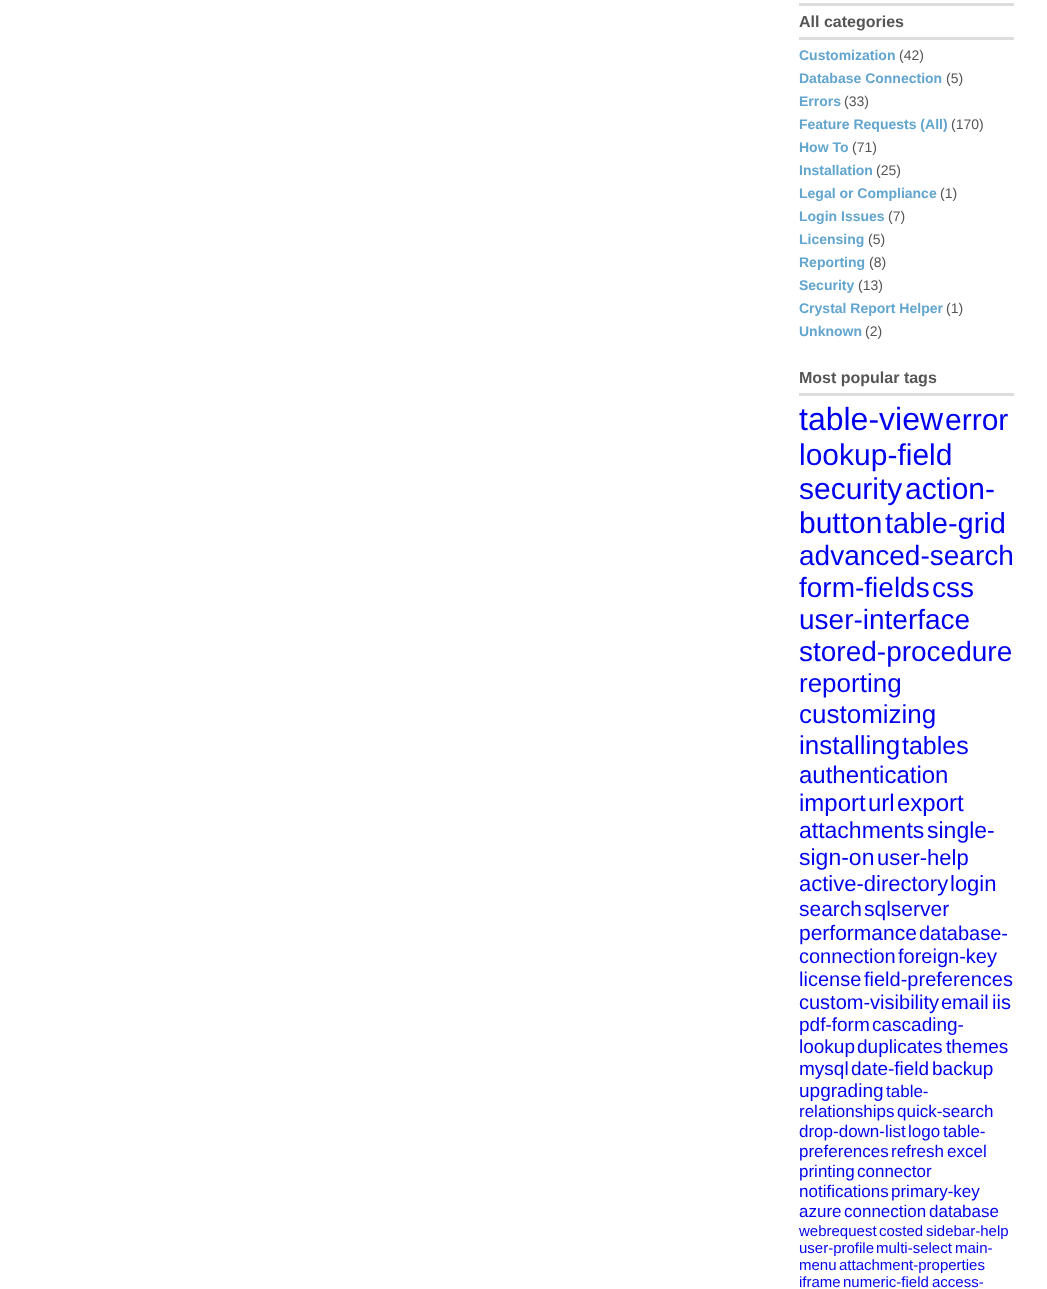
async function draw(canvas) {
	canvas.width = 1047;
	canvas.height = 1289;
	const c = canvas.getContext('2d');
	c.miterLimit = 4;
	c.fontKerning = 'normal';

	c.fillStyle = '#fff';
	c.fillRect(0, 0, 1047, 1289);
	c.fillStyle = '#ddd';
	c.fillRect(799, 3, 215, 3);
	c.fillRect(799, 37, 215, 3);
	c.font = 'bold 16px Liberation Sans';
	c.fillStyle = '#555';
	c.fillText('All categories', 799, 27);
	c.font = 'bold 14px Liberation Sans';
	c.fillStyle = '#62a5ce';
	c.fillText('Customization', 799, 60);
	c.font = '14px Liberation Sans';
	c.fillStyle = '#555';
	c.fillText('(42)', 899, 60);
	c.font = 'bold 14px Liberation Sans';
	c.fillStyle = '#62a5ce';
	c.fillText('Database Connection', 799, 83);
	c.font = '14px Liberation Sans';
	c.fillStyle = '#555';
	c.fillText('(5)', 946, 83);
	c.font = 'bold 14px Liberation Sans';
	c.fillStyle = '#62a5ce';
	c.fillText('Errors', 799, 106);
	c.font = '14px Liberation Sans';
	c.fillStyle = '#555';
	c.fillText('(33)', 844, 106);
	c.font = 'bold 14px Liberation Sans';
	c.fillStyle = '#62a5ce';
	c.fillText('Feature Requests (All)', 799, 129);
	c.font = '14px Liberation Sans';
	c.fillStyle = '#555';
	c.fillText('(170)', 951, 129);
	c.font = 'bold 14px Liberation Sans';
	c.fillStyle = '#62a5ce';
	c.fillText('How To', 799, 152);
	c.font = '14px Liberation Sans';
	c.fillStyle = '#555';
	c.fillText('(71)', 852, 152);
	c.font = 'bold 14px Liberation Sans';
	c.fillStyle = '#62a5ce';
	c.fillText('Installation', 799, 175);
	c.font = '14px Liberation Sans';
	c.fillStyle = '#555';
	c.fillText('(25)', 876, 175);
	c.font = 'bold 14px Liberation Sans';
	c.fillStyle = '#62a5ce';
	c.fillText('Legal or Compliance', 799, 198);
	c.font = '14px Liberation Sans';
	c.fillStyle = '#555';
	c.fillText('(1)', 940, 198);
	c.font = 'bold 14px Liberation Sans';
	c.fillStyle = '#62a5ce';
	c.fillText('Login Issues', 799, 221);
	c.font = '14px Liberation Sans';
	c.fillStyle = '#555';
	c.fillText('(7)', 888, 221);
	c.font = 'bold 14px Liberation Sans';
	c.fillStyle = '#62a5ce';
	c.fillText('Licensing', 799, 244);
	c.font = '14px Liberation Sans';
	c.fillStyle = '#555';
	c.fillText('(5)', 868, 244);
	c.font = 'bold 14px Liberation Sans';
	c.fillStyle = '#62a5ce';
	c.fillText('Reporting', 799, 267);
	c.font = '14px Liberation Sans';
	c.fillStyle = '#555';
	c.fillText('(8)', 869, 267);
	c.font = 'bold 14px Liberation Sans';
	c.fillStyle = '#62a5ce';
	c.fillText('Security', 799, 290);
	c.font = '14px Liberation Sans';
	c.fillStyle = '#555';
	c.fillText('(13)', 858, 290);
	c.font = 'bold 14px Liberation Sans';
	c.fillStyle = '#62a5ce';
	c.fillText('Crystal Report Helper', 799, 313);
	c.font = '14px Liberation Sans';
	c.fillStyle = '#555';
	c.fillText('(1)', 946, 313);
	c.font = 'bold 14px Liberation Sans';
	c.fillStyle = '#62a5ce';
	c.fillText('Unknown', 799, 336);
	c.font = '14px Liberation Sans';
	c.fillStyle = '#555';
	c.fillText('(2)', 865, 336);
	c.fillStyle = '#ddd';
	c.fillRect(799, 393, 215, 3);
	c.font = 'bold 16px Liberation Sans';
	c.fillStyle = '#555';
	c.fillText('Most popular tags', 799, 383);
	c.font = '32px Liberation Sans';
	c.fillStyle = '#00e';
	c.fillText('table-view', 799, 430);
	c.font = '30px Liberation Sans';
	for (const [text, x, y] of [
		['error', 945, 430],
		['lookup-field', 799, 465],
		['security', 799, 499],
		['action-', 905, 499],
		['button', 799, 533],
	]) {
		c.fillText(text, x, y);
	}
	c.font = '29px Liberation Sans';
	c.fillText('table-grid', 885, 533);
	c.font = '28px Liberation Sans';
	for (const [text, x, y] of [
		['advanced-search', 799, 565],
		['form-fields', 799, 597],
		['css', 932, 597],
		['user-interface', 799, 629],
		['stored-procedure', 799, 661],
	]) {
		c.fillText(text, x, y);
	}
	c.font = '26px Liberation Sans';
	for (const [text, x, y] of [
		['reporting', 799, 692],
		['customizing', 799, 723],
		['installing', 799, 754],
	]) {
		c.fillText(text, x, y);
	}
	c.font = '25px Liberation Sans';
	c.fillText('tables', 902, 754);
	c.font = '24px Liberation Sans';
	for (const [text, x, y] of [
		['authentication', 799, 783],
		['import', 799, 811],
		['url', 868, 811],
		['export', 897, 811],
	]) {
		c.fillText(text, x, y);
	}
	c.font = '23px Liberation Sans';
	for (const [text, x, y] of [
		['attachments', 799, 838],
		['single-', 927, 838],
		['sign-on', 799, 865],
	]) {
		c.fillText(text, x, y);
	}
	c.font = '22px Liberation Sans';
	for (const [text, x, y] of [
		['user-help', 877, 865],
		['active-directory', 799, 891],
		['login', 950, 891],
	]) {
		c.fillText(text, x, y);
	}
	c.font = '21px Liberation Sans';
	for (const [text, x, y] of [
		['search', 799, 916],
		['sqlserver', 864, 916],
		['performance', 799, 940],
	]) {
		c.fillText(text, x, y);
	}
	c.font = '20px Liberation Sans';
	for (const [text, x, y] of [
		['database-', 919, 940],
		['connection', 799, 963],
		['foreign-key', 898, 963],
		['license', 799, 986],
		['field-preferences', 864, 986],
		['custom-visibility', 799, 1009],
		['email', 941, 1009],
		['iis', 992, 1009],
	]) {
		c.fillText(text, x, y);
	}
	c.font = '19px Liberation Sans';
	for (const [text, x, y] of [
		['pdf-form', 799, 1031],
		['cascading-', 872, 1031],
		['lookup', 799, 1053],
		['duplicates', 857, 1053],
		['themes', 946, 1053],
		['mysql', 799, 1075],
		['date-field', 851, 1075],
		['backup', 932, 1075],
		['upgrading', 799, 1097],
	]) {
		c.fillText(text, x, y);
	}
	c.font = '17px Liberation Sans';
	for (const [text, x, y] of [
		['table-', 886, 1097],
		['relationships', 799, 1117],
		['quick-search', 897, 1117],
		['drop-down-list', 799, 1137],
		['logo', 908, 1137],
		['table-', 943, 1137],
		['preferences', 799, 1157],
		['refresh', 891, 1157],
		['excel', 947, 1157],
		['printing', 799, 1177],
		['connector', 857, 1177],
		['notifications', 799, 1197],
		['primary-key', 891, 1197],
		['azure', 799, 1217],
		['connection', 844, 1217],
		['database', 929, 1217],
	]) {
		c.fillText(text, x, y);
	}
	c.font = '15px Liberation Sans';
	for (const [text, x, y] of [
		['webrequest', 799, 1236],
		['costed', 879, 1236],
		['sidebar-help', 926, 1236],
		['user-profile', 799, 1253],
		['multi-select', 876, 1253],
		['main-', 955, 1253],
		['menu', 799, 1270],
		['attachment-properties', 839, 1270],
		['iframe', 799, 1287],
		['numeric-field', 843, 1287],
		['access-', 932, 1287],
	]) {
		c.fillText(text, x, y);
	}
}

draw(document.querySelector('canvas'));
